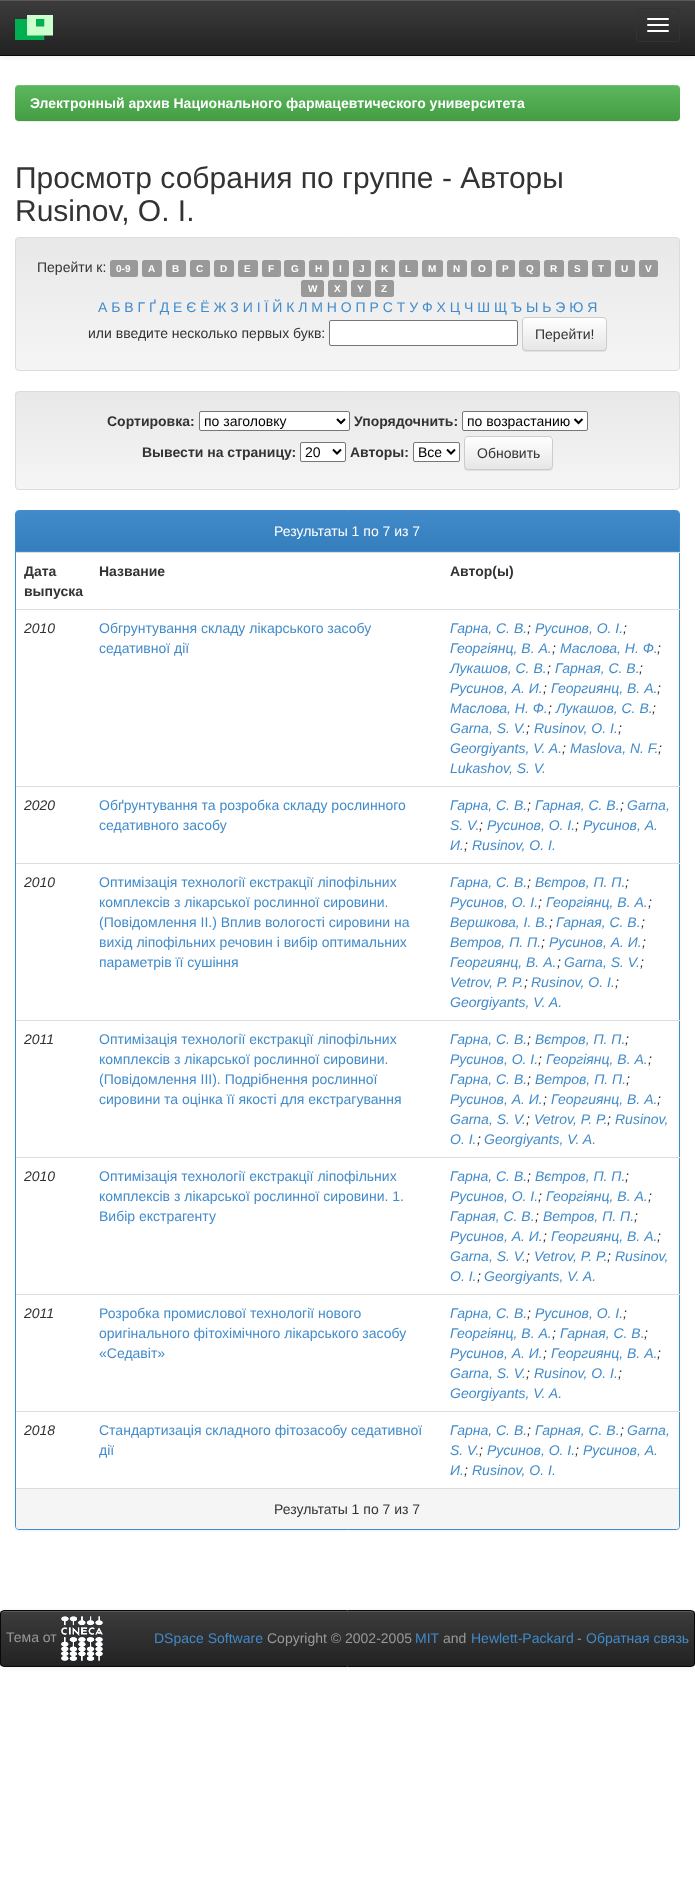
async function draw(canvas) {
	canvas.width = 695;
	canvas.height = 1890;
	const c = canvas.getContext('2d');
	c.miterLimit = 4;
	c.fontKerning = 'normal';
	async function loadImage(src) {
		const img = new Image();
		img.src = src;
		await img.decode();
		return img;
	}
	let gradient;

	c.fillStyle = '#fff';
	c.fillRect(0, 0, 695, 1890);
	c.fillStyle = '#00000012';
	c.filter = 'blur(2.5px)';
	c.beginPath();
	c.rect(0, 1, 695, 56);
	c.fill();
	c.filter = 'none';
	gradient = c.createLinearGradient(348, 0, 348, 55);
	gradient.addColorStop(0, '#3c3c3c');
	gradient.addColorStop(1, '#222');
	c.fillStyle = gradient;
	c.fillRect(0, 1, 695, 54);
	c.fillStyle = '#595959';
	c.fillRect(0, 0, 695, 1);
	c.fillStyle = '#080808';
	c.fillRect(0, 55, 695, 1);
	c.drawImage(await loadImage('img1.png'), 15, 15, 38, 25);
	c.beginPath();
	c.roundRect(636.5, 8.5, 43, 33, 3.5);
	c.strokeStyle = '#333';
	c.stroke();
	c.fillStyle = '#fff';
	c.beginPath();
	c.roundRect(647, 18, 22, 2, 1);
	c.fill();
	c.beginPath();
	c.roundRect(647, 24, 22, 2, 1);
	c.fill();
	c.beginPath();
	c.roundRect(647, 30, 22, 2, 1);
	c.fill();
	c.fillStyle = '#00000012';
	c.filter = 'blur(0.5px)';
	c.beginPath();
	c.roundRect(15, 86, 665, 36, 4);
	c.fill();
	c.filter = 'none';
	gradient = c.createLinearGradient(348, 85, 348, 121);
	gradient.addColorStop(0, '#5cb85c');
	gradient.addColorStop(1, '#449d44');
	c.fillStyle = gradient;
	c.beginPath();
	c.roundRect(15, 85, 665, 36, 4);
	c.fill();
	c.fillStyle = '#ffffff26';
	c.beginPath();
	c.moveTo(19, 86);
	c.lineTo(676, 86);
	c.bezierCurveTo(678, 86, 680, 88, 680, 90);
	c.bezierCurveTo(680, 87, 679, 85, 676, 85);
	c.lineTo(19, 85);
	c.lineTo(16, 86);
	c.lineTo(15, 87);
	c.lineTo(15, 90);
	c.bezierCurveTo(15, 88, 17, 86, 19, 86);
	c.closePath();
	c.fill();
	c.font = 'bold 14px Liberation Sans';
	c.fillStyle = '#fff';
	c.fillText('Электронный архив Национального фармацевтического университета', 30, 108);
	c.font = '30px Liberation Sans';
	c.fillStyle = '#333';
	c.fillText('Просмотр собрания по группе - Авторы', 15, 188);
	c.fillText('Rusinov, O. I.', 15, 221);
	c.save();
	c.beginPath();
	c.roundRect(15, 237, 665, 134, 4);
	c.clip();
	gradient = c.createLinearGradient(348, 238, 348, 370);
	gradient.addColorStop(0, '#e8e8e8');
	gradient.addColorStop(1, '#f5f5f5');
	c.fillStyle = gradient;
	c.fillRect(15, 238, 665, 132);
	c.restore();
	c.beginPath();
	c.roundRect(15.5, 237.5, 664, 133, 3.5);
	c.strokeStyle = '#dcdcdc';
	c.stroke();
	c.font = '14px Liberation Sans';
	c.fillText('Перейти к:', 37, 272);
	c.fillStyle = '#999';
	c.beginPath();
	c.roundRect(110, 260, 28, 17, 2.5);
	c.fill();
	c.font = 'bold 10px Liberation Sans';
	c.fillStyle = '#fff';
	c.fillText('0-9', 116, 272);
	c.fillStyle = '#999';
	c.beginPath();
	c.roundRect(142, 260, 20, 17, 2.5);
	c.fill();
	c.fillStyle = '#fff';
	c.fillText('A', 148, 272);
	c.fillStyle = '#999';
	c.beginPath();
	c.roundRect(166, 260, 20, 17, 2.5);
	c.fill();
	c.fillStyle = '#fff';
	c.fillText('B', 172, 272);
	c.fillStyle = '#999';
	c.beginPath();
	c.roundRect(190, 260, 20, 17, 2.5);
	c.fill();
	c.fillStyle = '#fff';
	c.fillText('C', 196, 272);
	c.fillStyle = '#999';
	c.beginPath();
	c.roundRect(214, 260, 20, 17, 2.5);
	c.fill();
	c.fillStyle = '#fff';
	c.fillText('D', 220, 272);
	c.fillStyle = '#999';
	c.beginPath();
	c.roundRect(238, 260, 20, 17, 2.5);
	c.fill();
	c.fillStyle = '#fff';
	c.fillText('E', 244, 272);
	c.fillStyle = '#999';
	c.beginPath();
	c.roundRect(262, 260, 19, 17, 2.5);
	c.fill();
	c.fillStyle = '#fff';
	c.fillText('F', 268, 272);
	c.fillStyle = '#999';
	c.beginPath();
	c.roundRect(284, 260, 21, 17, 2.5);
	c.fill();
	c.fillStyle = '#fff';
	c.fillText('G', 291, 272);
	c.fillStyle = '#999';
	c.beginPath();
	c.roundRect(309, 260, 20, 17, 2.5);
	c.fill();
	c.fillStyle = '#fff';
	c.fillText('H', 315, 272);
	c.fillStyle = '#999';
	c.beginPath();
	c.roundRect(333, 260, 16, 17, 2.5);
	c.fill();
	c.fillStyle = '#fff';
	c.fillText('I', 339, 272);
	c.fillStyle = '#999';
	c.beginPath();
	c.roundRect(353, 260, 18, 17, 2.5);
	c.fill();
	c.fillStyle = '#fff';
	c.fillText('J', 359, 272);
	c.fillStyle = '#999';
	c.beginPath();
	c.roundRect(375, 260, 20, 17, 2.5);
	c.fill();
	c.fillStyle = '#fff';
	c.fillText('K', 381, 272);
	c.fillStyle = '#999';
	c.beginPath();
	c.roundRect(399, 260, 19, 17, 2.5);
	c.fill();
	c.fillStyle = '#fff';
	c.fillText('L', 405, 272);
	c.fillStyle = '#999';
	c.beginPath();
	c.roundRect(422, 260, 21, 17, 2.5);
	c.fill();
	c.fillStyle = '#fff';
	c.fillText('M', 428, 272);
	c.fillStyle = '#999';
	c.beginPath();
	c.roundRect(447, 260, 20, 17, 2.5);
	c.fill();
	c.fillStyle = '#fff';
	c.fillText('N', 453, 272);
	c.fillStyle = '#999';
	c.beginPath();
	c.roundRect(471, 260, 21, 17, 2.5);
	c.fill();
	c.fillStyle = '#fff';
	c.fillText('O', 478, 272);
	c.fillStyle = '#999';
	c.beginPath();
	c.roundRect(496, 260, 19, 17, 2.5);
	c.fill();
	c.fillStyle = '#fff';
	c.fillText('P', 502, 272);
	c.fillStyle = '#999';
	c.beginPath();
	c.roundRect(519, 260, 21, 17, 2.5);
	c.fill();
	c.fillStyle = '#fff';
	c.fillText('Q', 526, 272);
	c.fillStyle = '#999';
	c.beginPath();
	c.roundRect(544, 260, 20, 17, 2.5);
	c.fill();
	c.fillStyle = '#fff';
	c.fillText('R', 550, 272);
	c.fillStyle = '#999';
	c.beginPath();
	c.roundRect(568, 260, 20, 17, 2.5);
	c.fill();
	c.fillStyle = '#fff';
	c.fillText('S', 574, 272);
	c.fillStyle = '#999';
	c.beginPath();
	c.roundRect(592, 260, 19, 17, 2.5);
	c.fill();
	c.fillStyle = '#fff';
	c.fillText('T', 598, 272);
	c.fillStyle = '#999';
	c.beginPath();
	c.roundRect(615, 260, 20, 17, 2.5);
	c.fill();
	c.fillStyle = '#fff';
	c.fillText('U', 621, 272);
	c.fillStyle = '#999';
	c.beginPath();
	c.roundRect(639, 260, 19, 17, 2.5);
	c.fill();
	c.fillStyle = '#fff';
	c.fillText('V', 645, 272);
	c.fillStyle = '#999';
	c.beginPath();
	c.roundRect(301, 280, 23, 17, 2.5);
	c.fill();
	c.fillStyle = '#fff';
	c.fillText('W', 308, 292);
	c.fillStyle = '#999';
	c.beginPath();
	c.roundRect(328, 280, 19, 17, 2.5);
	c.fill();
	c.fillStyle = '#fff';
	c.fillText('X', 334, 292);
	c.fillStyle = '#999';
	c.beginPath();
	c.roundRect(351, 280, 20, 17, 2.5);
	c.fill();
	c.fillStyle = '#fff';
	c.fillText('Y', 357, 292);
	c.fillStyle = '#999';
	c.beginPath();
	c.roundRect(375, 280, 19, 17, 2.5);
	c.fill();
	c.fillStyle = '#fff';
	c.fillText('Z', 381, 292);
	c.font = '14px Liberation Sans';
	c.fillStyle = '#428bca';
	c.fillText('А Б В Г Ґ Д Е Є Ё Ж З И І Ї Й К Л М Н О П Р С Т У Ф Х Ц Ч Ш Щ Ъ Ы Ь Э Ю Я', 98, 312);
	c.fillStyle = '#333';
	c.fillText('или введите несколько первых букв:', 88, 338);
	c.fillStyle = '#fff';
	c.beginPath();
	c.roundRect(329.5, 320.5, 188, 25, 1.5);
	c.fill();
	c.strokeStyle = '#767676';
	c.stroke();
	c.fillStyle = '#00000012';
	c.filter = 'blur(0.5px)';
	c.beginPath();
	c.roundRect(522, 318, 85, 34, 4);
	c.fill();
	c.filter = 'none';
	c.save();
	c.beginPath();
	c.roundRect(522, 317, 85, 34, 4);
	c.clip();
	gradient = c.createLinearGradient(565, 318, 565, 350);
	gradient.addColorStop(0, '#fff');
	gradient.addColorStop(1, '#e6e6e6');
	c.fillStyle = gradient;
	c.fillRect(522, 318, 85, 32);
	c.restore();
	c.beginPath();
	c.roundRect(522.5, 317.5, 84, 33, 3.5);
	c.strokeStyle = '#ccc';
	c.stroke();
	c.fillStyle = '#333';
	c.fillText('Перейти!', 535, 339);
	c.save();
	c.beginPath();
	c.roundRect(15, 391, 665, 99, 4);
	c.clip();
	gradient = c.createLinearGradient(348, 392, 348, 489);
	gradient.addColorStop(0, '#e8e8e8');
	gradient.addColorStop(1, '#f5f5f5');
	c.fillStyle = gradient;
	c.fillRect(15, 392, 665, 97);
	c.restore();
	c.beginPath();
	c.roundRect(15.5, 391.5, 664, 98, 3.5);
	c.strokeStyle = '#dcdcdc';
	c.stroke();
	c.font = 'bold 14px Liberation Sans';
	c.fillText('Сортировка:', 107, 426);
	c.fillStyle = '#fff';
	c.beginPath();
	c.roundRect(199.5, 411.5, 150, 19, 1.5);
	c.fill();
	c.strokeStyle = '#767676';
	c.stroke();
	c.beginPath();
	c.moveTo(337, 419);
	c.lineTo(341, 423);
	c.lineTo(345, 419);
	c.strokeStyle = '#000';
	c.lineWidth = 2;
	c.stroke();
	c.font = '14px Liberation Sans';
	c.fillStyle = '#000';
	c.fillText('по заголовку', 204, 426);
	c.font = 'bold 14px Liberation Sans';
	c.fillStyle = '#333';
	c.fillText('Упорядочнить:', 354, 426);
	c.fillStyle = '#fff';
	c.beginPath();
	c.roundRect(462.5, 411.5, 125, 19, 1.5);
	c.fill();
	c.strokeStyle = '#767676';
	c.lineWidth = 1;
	c.stroke();
	c.beginPath();
	c.moveTo(574.5, 419);
	c.lineTo(578.5, 423);
	c.lineTo(582.5, 419);
	c.strokeStyle = '#000';
	c.lineWidth = 2;
	c.stroke();
	c.font = '14px Liberation Sans';
	c.fillStyle = '#000';
	c.fillText('по возрастанию', 467, 426);
	c.font = 'bold 14px Liberation Sans';
	c.fillStyle = '#333';
	c.fillText('Вывести на страницу:', 142, 457);
	c.fillStyle = '#fff';
	c.beginPath();
	c.roundRect(300.5, 442.5, 45, 19, 1.5);
	c.fill();
	c.strokeStyle = '#767676';
	c.lineWidth = 1;
	c.stroke();
	c.beginPath();
	c.moveTo(333, 449.5);
	c.lineTo(337, 453.5);
	c.lineTo(341, 449.5);
	c.strokeStyle = '#000';
	c.lineWidth = 2;
	c.stroke();
	c.font = '14px Liberation Sans';
	c.fillStyle = '#000';
	c.fillText('20', 305, 457);
	c.font = 'bold 14px Liberation Sans';
	c.fillStyle = '#333';
	c.fillText('Авторы:', 350, 457);
	c.fillStyle = '#fff';
	c.beginPath();
	c.roundRect(413.5, 442.5, 46, 19, 1.5);
	c.fill();
	c.strokeStyle = '#767676';
	c.lineWidth = 1;
	c.stroke();
	c.beginPath();
	c.moveTo(447, 449.5);
	c.lineTo(451, 453.5);
	c.lineTo(455, 449.5);
	c.strokeStyle = '#000';
	c.lineWidth = 2;
	c.stroke();
	c.font = '14px Liberation Sans';
	c.fillStyle = '#000';
	c.fillText('Все', 418, 457);
	c.fillStyle = '#00000012';
	c.filter = 'blur(0.5px)';
	c.beginPath();
	c.roundRect(464, 437, 89, 34, 4);
	c.fill();
	c.filter = 'none';
	c.save();
	c.beginPath();
	c.roundRect(464, 436, 89, 34, 4);
	c.clip();
	gradient = c.createLinearGradient(509, 437, 509, 469);
	gradient.addColorStop(0, '#fff');
	gradient.addColorStop(1, '#e6e6e6');
	c.fillStyle = gradient;
	c.fillRect(464, 437, 89, 32);
	c.restore();
	c.beginPath();
	c.roundRect(464.5, 436.5, 88, 33, 3.5);
	c.strokeStyle = '#ccc';
	c.lineWidth = 1;
	c.stroke();
	c.fillStyle = '#333';
	c.fillText('Обновить', 477, 458);
	c.fillStyle = '#0000000d';
	c.filter = 'blur(1px)';
	c.beginPath();
	c.roundRect(15, 511, 665, 1020, 4);
	c.fill();
	c.filter = 'none';
	c.fillStyle = '#fff';
	c.beginPath();
	c.roundRect(15.5, 510.5, 664, 1019, 3.5);
	c.fill();
	c.strokeStyle = '#428bca';
	c.stroke();
	c.fillStyle = '#428bca';
	c.beginPath();
	c.roundRect(16, 511, 663, 41, [3, 3, 0, 0]);
	c.fill();
	gradient = c.createLinearGradient(348, 511, 348, 551);
	gradient.addColorStop(0, '#428bca');
	gradient.addColorStop(1, '#357ebd');
	c.fillStyle = gradient;
	c.beginPath();
	c.roundRect(16, 511, 663, 40, [3, 3, 0, 0]);
	c.fill();
	c.fillStyle = '#fff';
	c.fillText('Результаты 1 по 7 из 7', 274, 536);
	c.font = 'bold 14px Liberation Sans';
	c.fillStyle = '#333';
	for (const [text, x, y] of [
		['Дата', 24, 576],
		['выпуска', 24, 596],
		['Название', 99, 576],
	]) {
		c.fillText(text, x, y);
	}
	c.fillStyle = '#ddd';
	c.fillRect(16, 552, 664, 1);
	c.fillStyle = '#333';
	c.fillText('Автор(ы)', 450, 576);
	c.font = 'italic 14px Liberation Sans';
	c.fillText('2010', 24, 633);
	c.font = '14px Liberation Sans';
	c.fillStyle = '#428bca';
	c.fillText('Обгрунтування складу лікарського засобу', 99, 633);
	c.fillText('седативної дії', 99, 653);
	c.fillStyle = '#ddd';
	c.fillRect(16, 609, 664, 1);
	c.font = 'italic 14px Liberation Sans';
	c.fillStyle = '#428bca';
	c.fillText('Гарна, С. В.', 450, 633);
	c.fillStyle = '#333';
	c.fillText(';', 527, 633);
	c.fillStyle = '#428bca';
	c.fillText('Русинов, О. І.', 535, 633);
	c.fillStyle = '#333';
	c.fillText(';', 623, 633);
	c.fillStyle = '#428bca';
	c.fillText('Георгіянц, В. А.', 450, 653);
	c.fillStyle = '#333';
	c.fillText(';', 552, 653);
	c.fillStyle = '#428bca';
	c.fillText('Маслова, Н. Ф.', 560, 653);
	c.fillStyle = '#333';
	c.fillText(';', 657, 653);
	c.fillStyle = '#428bca';
	c.fillText('Лукашов, С. В.', 450, 673);
	c.fillStyle = '#333';
	c.fillText(';', 547, 673);
	c.fillStyle = '#428bca';
	c.fillText('Гарная, С. В.', 555, 673);
	c.fillStyle = '#333';
	c.fillText(';', 639, 673);
	c.fillStyle = '#428bca';
	c.fillText('Русинов, А. И.', 450, 693);
	c.fillStyle = '#333';
	c.fillText(';', 543, 693);
	c.fillStyle = '#428bca';
	c.fillText('Георгиянц, В. А.', 551, 693);
	c.fillStyle = '#333';
	c.fillText(';', 657, 693);
	c.fillStyle = '#428bca';
	c.fillText('Маслова, Н. Ф.', 450, 713);
	c.fillStyle = '#333';
	c.fillText(';', 548, 713);
	c.fillStyle = '#428bca';
	c.fillText('Лукашов, С. В.', 556, 713);
	c.fillStyle = '#333';
	c.fillText(';', 652, 713);
	c.fillStyle = '#428bca';
	c.fillText('Garna, S. V.', 450, 733);
	c.fillStyle = '#333';
	c.fillText(';', 526, 733);
	c.fillStyle = '#428bca';
	c.fillText('Rusinov, O. I.', 534, 733);
	c.fillStyle = '#333';
	c.fillText(';', 618, 733);
	c.fillStyle = '#428bca';
	c.fillText('Georgiyants, V. A.', 450, 753);
	c.fillStyle = '#333';
	c.fillText(';', 562, 753);
	c.fillStyle = '#428bca';
	c.fillText('Maslova, N. F.', 570, 753);
	c.fillStyle = '#333';
	c.fillText(';', 658, 753);
	c.fillStyle = '#428bca';
	c.fillText('Lukashov, S. V.', 450, 773);
	c.fillStyle = '#333';
	c.fillText('2020', 24, 810);
	c.font = '14px Liberation Sans';
	c.fillStyle = '#428bca';
	c.fillText('Обґрунтування та розробка складу рослинного', 99, 810);
	c.fillText('седативного засобу', 99, 830);
	c.fillStyle = '#ddd';
	c.fillRect(16, 786, 664, 1);
	c.font = 'italic 14px Liberation Sans';
	c.fillStyle = '#428bca';
	c.fillText('Гарна, С. В.', 450, 810);
	c.fillStyle = '#333';
	c.fillText(';', 527, 810);
	c.fillStyle = '#428bca';
	c.fillText('Гарная, С. В.', 535, 810);
	c.fillStyle = '#333';
	c.fillText(';', 620, 810);
	c.fillStyle = '#428bca';
	c.fillText('Garna,', 627, 810);
	c.fillText('S. V.', 450, 830);
	c.fillStyle = '#333';
	c.fillText(';', 479, 830);
	c.fillStyle = '#428bca';
	c.fillText('Русинов, О. І.', 487, 830);
	c.fillStyle = '#333';
	c.fillText(';', 575, 830);
	c.fillStyle = '#428bca';
	c.fillText('Русинов, А.', 583, 830);
	c.fillText('И.', 450, 850);
	c.fillStyle = '#333';
	c.fillText(';', 464, 850);
	c.fillStyle = '#428bca';
	c.fillText('Rusinov, O. I.', 472, 850);
	c.fillStyle = '#333';
	c.fillText('2010', 24, 887);
	c.font = '14px Liberation Sans';
	c.fillStyle = '#428bca';
	for (const [text, x, y] of [
		['Оптимізація технології екстракції ліпофільних', 99, 887],
		['комплексів з лікарської рослинної сировини.', 99, 907],
		['(Повідомлення ІІ.) Вплив вологості сировини на', 99, 927],
		['вихід ліпофільних речовин і вибір оптимальних', 99, 947],
		['параметрів її сушіння', 99, 967],
	]) {
		c.fillText(text, x, y);
	}
	c.fillStyle = '#ddd';
	c.fillRect(16, 863, 664, 1);
	c.font = 'italic 14px Liberation Sans';
	c.fillStyle = '#428bca';
	c.fillText('Гарна, С. В.', 450, 887);
	c.fillStyle = '#333';
	c.fillText(';', 527, 887);
	c.fillStyle = '#428bca';
	c.fillText('Вєтров, П. П.', 535, 887);
	c.fillStyle = '#333';
	c.fillText(';', 625, 887);
	c.fillStyle = '#428bca';
	c.fillText('Русинов, О. І.', 450, 907);
	c.fillStyle = '#333';
	c.fillText(';', 538, 907);
	c.fillStyle = '#428bca';
	c.fillText('Георгіянц, В. А.', 546, 907);
	c.fillStyle = '#333';
	c.fillText(';', 648, 907);
	c.fillStyle = '#428bca';
	c.fillText('Вершкова, І. В.', 450, 927);
	c.fillStyle = '#333';
	c.fillText(';', 549, 927);
	c.fillStyle = '#428bca';
	c.fillText('Гарная, С. В.', 556, 927);
	c.fillStyle = '#333';
	c.fillText(';', 641, 927);
	c.fillStyle = '#428bca';
	c.fillText('Ветров, П. П.', 450, 947);
	c.fillStyle = '#333';
	c.fillText(';', 541, 947);
	c.fillStyle = '#428bca';
	c.fillText('Русинов, А. И.', 549, 947);
	c.fillStyle = '#333';
	c.fillText(';', 642, 947);
	c.fillStyle = '#428bca';
	c.fillText('Георгиянц, В. А.', 450, 967);
	c.fillStyle = '#333';
	c.fillText(';', 557, 967);
	c.fillStyle = '#428bca';
	c.fillText('Garna, S. V.', 564, 967);
	c.fillStyle = '#333';
	c.fillText(';', 640, 967);
	c.fillStyle = '#428bca';
	c.fillText('Vetrov, P. P.', 450, 987);
	c.fillStyle = '#333';
	c.fillText(';', 524, 987);
	c.fillStyle = '#428bca';
	c.fillText('Rusinov, O. I.', 531, 987);
	c.fillStyle = '#333';
	c.fillText(';', 615, 987);
	c.fillStyle = '#428bca';
	c.fillText('Georgiyants, V. A.', 450, 1007);
	c.fillStyle = '#333';
	c.fillText('2011', 24, 1044);
	c.font = '14px Liberation Sans';
	c.fillStyle = '#428bca';
	for (const [text, x, y] of [
		['Оптимізація технології екстракції ліпофільних', 99, 1044],
		['комплексів з лікарської рослинної сировини.', 99, 1064],
		['(Повідомлення ІІІ). Подрібнення рослинної', 99, 1084],
		['сировини та оцінка її якості для екстрагування', 99, 1104],
	]) {
		c.fillText(text, x, y);
	}
	c.fillStyle = '#ddd';
	c.fillRect(16, 1020, 664, 1);
	c.font = 'italic 14px Liberation Sans';
	c.fillStyle = '#428bca';
	c.fillText('Гарна, С. В.', 450, 1044);
	c.fillStyle = '#333';
	c.fillText(';', 527, 1044);
	c.fillStyle = '#428bca';
	c.fillText('Вєтров, П. П.', 535, 1044);
	c.fillStyle = '#333';
	c.fillText(';', 625, 1044);
	c.fillStyle = '#428bca';
	c.fillText('Русинов, О. І.', 450, 1064);
	c.fillStyle = '#333';
	c.fillText(';', 538, 1064);
	c.fillStyle = '#428bca';
	c.fillText('Георгіянц, В. А.', 546, 1064);
	c.fillStyle = '#333';
	c.fillText(';', 648, 1064);
	c.fillStyle = '#428bca';
	c.fillText('Гарна, С. В.', 450, 1084);
	c.fillStyle = '#333';
	c.fillText(';', 527, 1084);
	c.fillStyle = '#428bca';
	c.fillText('Ветров, П. П.', 535, 1084);
	c.fillStyle = '#333';
	c.fillText(';', 626, 1084);
	c.fillStyle = '#428bca';
	c.fillText('Русинов, А. И.', 450, 1104);
	c.fillStyle = '#333';
	c.fillText(';', 543, 1104);
	c.fillStyle = '#428bca';
	c.fillText('Георгиянц, В. А.', 551, 1104);
	c.fillStyle = '#333';
	c.fillText(';', 657, 1104);
	c.fillStyle = '#428bca';
	c.fillText('Garna, S. V.', 450, 1124);
	c.fillStyle = '#333';
	c.fillText(';', 526, 1124);
	c.fillStyle = '#428bca';
	c.fillText('Vetrov, P. P.', 534, 1124);
	c.fillStyle = '#333';
	c.fillText(';', 607, 1124);
	c.fillStyle = '#428bca';
	c.fillText('Rusinov,', 615, 1124);
	c.fillText('O. I.', 450, 1144);
	c.fillStyle = '#333';
	c.fillText(';', 477, 1144);
	c.fillStyle = '#428bca';
	c.fillText('Georgiyants, V. A.', 484, 1144);
	c.fillStyle = '#333';
	c.fillText('2010', 24, 1181);
	c.font = '14px Liberation Sans';
	c.fillStyle = '#428bca';
	for (const [text, x, y] of [
		['Оптимізація технології екстракції ліпофільних', 99, 1181],
		['комплексів з лікарської рослинної сировини. 1.', 99, 1201],
		['Вибір екстрагенту', 99, 1221],
	]) {
		c.fillText(text, x, y);
	}
	c.fillStyle = '#ddd';
	c.fillRect(16, 1157, 664, 1);
	c.font = 'italic 14px Liberation Sans';
	c.fillStyle = '#428bca';
	c.fillText('Гарна, С. В.', 450, 1181);
	c.fillStyle = '#333';
	c.fillText(';', 527, 1181);
	c.fillStyle = '#428bca';
	c.fillText('Вєтров, П. П.', 535, 1181);
	c.fillStyle = '#333';
	c.fillText(';', 625, 1181);
	c.fillStyle = '#428bca';
	c.fillText('Русинов, О. І.', 450, 1201);
	c.fillStyle = '#333';
	c.fillText(';', 538, 1201);
	c.fillStyle = '#428bca';
	c.fillText('Георгіянц, В. А.', 546, 1201);
	c.fillStyle = '#333';
	c.fillText(';', 648, 1201);
	c.fillStyle = '#428bca';
	c.fillText('Гарная, С. В.', 450, 1221);
	c.fillStyle = '#333';
	c.fillText(';', 535, 1221);
	c.fillStyle = '#428bca';
	c.fillText('Ветров, П. П.', 543, 1221);
	c.fillStyle = '#333';
	c.fillText(';', 634, 1221);
	c.fillStyle = '#428bca';
	c.fillText('Русинов, А. И.', 450, 1241);
	c.fillStyle = '#333';
	c.fillText(';', 543, 1241);
	c.fillStyle = '#428bca';
	c.fillText('Георгиянц, В. А.', 551, 1241);
	c.fillStyle = '#333';
	c.fillText(';', 657, 1241);
	c.fillStyle = '#428bca';
	c.fillText('Garna, S. V.', 450, 1261);
	c.fillStyle = '#333';
	c.fillText(';', 526, 1261);
	c.fillStyle = '#428bca';
	c.fillText('Vetrov, P. P.', 534, 1261);
	c.fillStyle = '#333';
	c.fillText(';', 607, 1261);
	c.fillStyle = '#428bca';
	c.fillText('Rusinov,', 615, 1261);
	c.fillText('O. I.', 450, 1281);
	c.fillStyle = '#333';
	c.fillText(';', 477, 1281);
	c.fillStyle = '#428bca';
	c.fillText('Georgiyants, V. A.', 484, 1281);
	c.fillStyle = '#333';
	c.fillText('2011', 24, 1318);
	c.font = '14px Liberation Sans';
	c.fillStyle = '#428bca';
	for (const [text, x, y] of [
		['Розробка промислової технології нового', 99, 1318],
		['оригінального фітохімічного лікарського засобу', 99, 1338],
		['«Седавіт»', 99, 1358],
	]) {
		c.fillText(text, x, y);
	}
	c.fillStyle = '#ddd';
	c.fillRect(16, 1294, 664, 1);
	c.font = 'italic 14px Liberation Sans';
	c.fillStyle = '#428bca';
	c.fillText('Гарна, С. В.', 450, 1318);
	c.fillStyle = '#333';
	c.fillText(';', 527, 1318);
	c.fillStyle = '#428bca';
	c.fillText('Русинов, О. І.', 535, 1318);
	c.fillStyle = '#333';
	c.fillText(';', 623, 1318);
	c.fillStyle = '#428bca';
	c.fillText('Георгіянц, В. А.', 450, 1338);
	c.fillStyle = '#333';
	c.fillText(';', 552, 1338);
	c.fillStyle = '#428bca';
	c.fillText('Гарная, С. В.', 560, 1338);
	c.fillStyle = '#333';
	c.fillText(';', 644, 1338);
	c.fillStyle = '#428bca';
	c.fillText('Русинов, А. И.', 450, 1358);
	c.fillStyle = '#333';
	c.fillText(';', 543, 1358);
	c.fillStyle = '#428bca';
	c.fillText('Георгиянц, В. А.', 551, 1358);
	c.fillStyle = '#333';
	c.fillText(';', 657, 1358);
	c.fillStyle = '#428bca';
	c.fillText('Garna, S. V.', 450, 1378);
	c.fillStyle = '#333';
	c.fillText(';', 526, 1378);
	c.fillStyle = '#428bca';
	c.fillText('Rusinov, O. I.', 534, 1378);
	c.fillStyle = '#333';
	c.fillText(';', 618, 1378);
	c.fillStyle = '#428bca';
	c.fillText('Georgiyants, V. A.', 450, 1398);
	c.fillStyle = '#333';
	c.fillText('2018', 24, 1435);
	c.font = '14px Liberation Sans';
	c.fillStyle = '#428bca';
	c.fillText('Стандартизація складного фітозасобу седативної', 99, 1435);
	c.fillText('дії', 99, 1455);
	c.fillStyle = '#ddd';
	c.fillRect(16, 1411, 664, 1);
	c.font = 'italic 14px Liberation Sans';
	c.fillStyle = '#428bca';
	c.fillText('Гарна, С. В.', 450, 1435);
	c.fillStyle = '#333';
	c.fillText(';', 527, 1435);
	c.fillStyle = '#428bca';
	c.fillText('Гарная, С. В.', 535, 1435);
	c.fillStyle = '#333';
	c.fillText(';', 620, 1435);
	c.fillStyle = '#428bca';
	c.fillText('Garna,', 627, 1435);
	c.fillText('S. V.', 450, 1455);
	c.fillStyle = '#333';
	c.fillText(';', 479, 1455);
	c.fillStyle = '#428bca';
	c.fillText('Русинов, О. І.', 487, 1455);
	c.fillStyle = '#333';
	c.fillText(';', 575, 1455);
	c.fillStyle = '#428bca';
	c.fillText('Русинов, А.', 583, 1455);
	c.fillText('И.', 450, 1475);
	c.fillStyle = '#333';
	c.fillText(';', 464, 1475);
	c.fillStyle = '#428bca';
	c.fillText('Rusinov, O. I.', 472, 1475);
	c.fillStyle = '#f5f5f5';
	c.beginPath();
	c.roundRect(16, 1488, 663, 41, [0, 0, 3, 3]);
	c.fill();
	c.fillStyle = '#ddd';
	c.fillRect(16, 1488, 663, 1);
	c.font = '14px Liberation Sans';
	c.fillStyle = '#333';
	c.fillText('Результаты 1 по 7 из 7', 274, 1514);
	c.fillStyle = '#00000012';
	c.filter = 'blur(2.5px)';
	c.beginPath();
	c.roundRect(0, 1611, 695, 57, 4);
	c.fill();
	c.filter = 'none';
	c.save();
	c.beginPath();
	c.roundRect(0, 1610, 695, 57, 4);
	c.clip();
	gradient = c.createLinearGradient(348, 1611, 348, 1666);
	gradient.addColorStop(0, '#3c3c3c');
	gradient.addColorStop(1, '#222');
	c.fillStyle = gradient;
	c.fillRect(0, 1611, 695, 55);
	c.restore();
	c.fillStyle = '#595959';
	c.beginPath();
	c.moveTo(4, 1612);
	c.lineTo(691, 1612);
	c.bezierCurveTo(693, 1612, 694, 1613, 694, 1615);
	c.lineTo(694, 1614);
	c.bezierCurveTo(694, 1612, 693, 1611, 691, 1611);
	c.lineTo(4, 1611);
	c.bezierCurveTo(2, 1611, 1, 1612, 1, 1614);
	c.lineTo(1, 1615);
	c.bezierCurveTo(1, 1613, 2, 1612, 4, 1612);
	c.closePath();
	c.fill();
	c.beginPath();
	c.roundRect(0.5, 1610.5, 694, 56, 3.5);
	c.strokeStyle = '#080808';
	c.stroke();
	c.fillStyle = '#999';
	c.fillText('Тема от', 6, 1642);
	c.drawImage(await loadImage('img2.png'), 61, 1616, 42, 45);
	c.fillStyle = '#428bca';
	c.fillText('DSpace Software', 154, 1643);
	c.fillStyle = '#999';
	c.fillText('Copyright © 2002-2005', 267, 1643);
	c.fillStyle = '#428bca';
	c.fillText('MIT', 415, 1643);
	c.fillStyle = '#999';
	c.fillText('and', 443, 1643);
	c.fillStyle = '#428bca';
	c.fillText('Hewlett-Packard', 471, 1643);
	c.fillStyle = '#999';
	c.fillText('-', 577, 1643);
	c.fillStyle = '#428bca';
	c.fillText('Обратная связь', 586, 1643);
}

draw(document.querySelector('canvas'));
